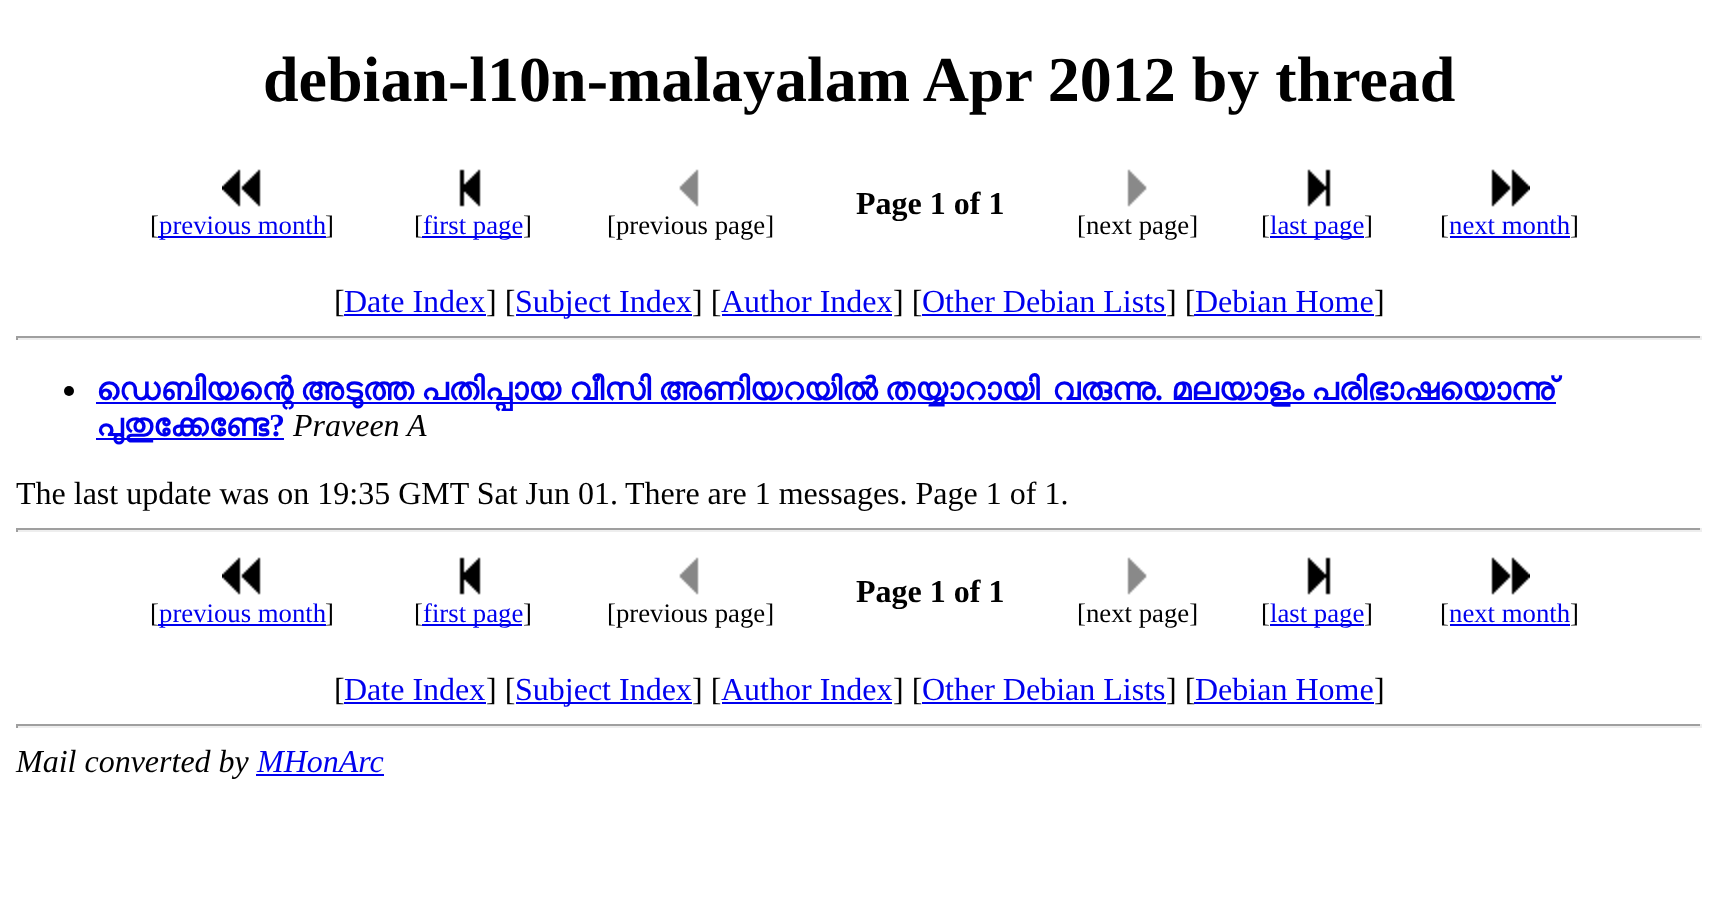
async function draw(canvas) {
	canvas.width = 1717;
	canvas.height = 904;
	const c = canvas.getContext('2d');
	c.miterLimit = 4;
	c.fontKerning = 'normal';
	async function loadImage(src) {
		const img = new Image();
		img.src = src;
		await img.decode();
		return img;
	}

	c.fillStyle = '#fff';
	c.fillRect(0, 0, 1717, 904);
	c.font = 'bold 64px Liberation Serif';
	c.fillStyle = '#000';
	c.fillText('debian-l10n-malayalam Apr 2012 by thread', 263, 101);
	c.font = 'bold 32px Liberation Serif';
	c.fillText('Page 1 of 1', 856, 214);
	c.drawImage(await loadImage('img1.png'), 222, 169, 39, 38);
	c.font = '26.75px Liberation Serif';
	c.fillText('[', 150, 234);
	c.fillStyle = '#00e';
	c.fillRect(158, 236, 168, 2);
	c.fillText('previous month', 159, 234);
	c.fillStyle = '#000';
	c.fillText(']', 325, 234);
	c.drawImage(await loadImage('img2.png'), 459, 169, 22, 38);
	c.fillText('[', 414, 234);
	c.fillStyle = '#00e';
	c.fillRect(422, 236, 100, 2);
	c.fillText('first page', 423, 234);
	c.fillStyle = '#000';
	c.fillText(']', 523, 234);
	c.drawImage(await loadImage('img3.png'), 679, 169, 20, 38);
	c.fillText('[previous page]', 607, 234);
	c.drawImage(await loadImage('img4.png'), 1127, 169, 20, 38);
	c.fillText('[next page]', 1077, 234);
	c.drawImage(await loadImage('img5.png'), 1307, 169, 24, 38);
	c.fillText('[', 1261, 234);
	c.fillStyle = '#00e';
	c.fillRect(1270, 236, 94, 2);
	c.fillText('last page', 1270, 234);
	c.fillStyle = '#000';
	c.fillText(']', 1364, 234);
	c.drawImage(await loadImage('img6.png'), 1491, 169, 39, 38);
	c.fillText('[', 1440, 234);
	c.fillStyle = '#00e';
	c.fillText('next month', 1449, 234);
	c.fillStyle = '#000';
	c.fillText(']', 1570, 234);
	c.fillStyle = '#00e';
	c.fillRect(1450, 236, 120, 2);
	c.font = '32px Liberation Serif';
	c.fillStyle = '#000';
	c.fillText('[', 334, 312);
	c.fillStyle = '#00e';
	c.fillText('Date Index', 344, 312);
	c.fillRect(344, 314, 142, 2);
	c.fillStyle = '#000';
	c.fillText('] [', 486, 312);
	c.fillStyle = '#00e';
	c.fillRect(516, 314, 176, 2);
	c.fillText('Subject Index', 515, 312);
	c.fillStyle = '#000';
	c.fillText('] [', 692, 312);
	c.fillStyle = '#00e';
	c.fillText('Author Index', 721, 312);
	c.fillRect(722, 314, 170, 2);
	c.fillStyle = '#000';
	c.fillText('] [', 893, 312);
	c.fillStyle = '#00e';
	c.fillText('Other Debian Lists', 922, 312);
	c.fillRect(922, 314, 244, 2);
	c.fillStyle = '#000';
	c.fillText('] [', 1166, 312);
	c.fillStyle = '#00e';
	c.fillText('Debian Home', 1195, 312);
	c.fillRect(1194, 314, 180, 2);
	c.fillStyle = '#000';
	c.fillText(']', 1374, 312);
	for (const [x, y, w, h, color] of [
		[16, 336, 1686, 2, '#9f9f9f'],
		[1700, 336, 2, 4, '#eee'],
		[16, 338, 1686, 2, '#eee'],
		[16, 336, 2, 4, '#9f9f9f'],
	]) {
		c.fillStyle = color;
		c.fillRect(x, y, w, h);
	}
	c.fillStyle = '#000';
	c.beginPath();
	c.arc(69, 391, 5, 0, 2 * Math.PI);
	c.fill();
	c.fillStyle = '#00e';
	c.fillRect(96, 402, 1460, 2);
	c.font = 'bold 32px FreeSans';
	for (const [text, x, y] of [
		['ഡെബിയന്റെ', 96, 400],
		['അടുത്ത', 300, 400],
		['പതിപ്പായ', 421, 400],
		['വീസി', 569, 400],
	]) {
		c.fillText(text, x, y);
	}
	c.wordSpacing = '-1px';
	c.fillText('അണിയറയില്‍ തയ്യാറായി', 658, 400);
	c.wordSpacing = '0px';
	for (const [text, x, y] of [
		['വരുന്നു', 1052, 400],
		['മലയാളം', 1171, 400],
		['പരിഭാഷയൊന്നു്', 1311, 400],
	]) {
		c.fillText(text, x, y);
	}
	c.font = 'bold 32px Liberation Serif';
	c.fillText('.', 1155, 400);
	c.fillRect(96, 438, 188, 2);
	c.font = 'bold 32px FreeSans';
	c.fillText('പുതുക്കേണ്ടേ', 96, 436);
	c.font = 'bold 32px Liberation Serif';
	c.fillText('?', 269, 436);
	c.font = 'italic 32px Liberation Serif';
	c.fillStyle = '#000';
	c.fillText('Praveen A', 293, 436);
	c.font = '32px Liberation Serif';
	c.fillText('The last update was on 19:35 GMT Sat Jun 01.', 16, 504);
	c.fillText('There are 1 messages. Page 1 of 1.', 625, 504);
	for (const [x, y, w, h, color] of [
		[16, 528, 1686, 2, '#9f9f9f'],
		[1700, 528, 2, 4, '#eee'],
		[16, 530, 1686, 2, '#eee'],
		[16, 528, 2, 4, '#9f9f9f'],
	]) {
		c.fillStyle = color;
		c.fillRect(x, y, w, h);
	}
	c.font = 'bold 32px Liberation Serif';
	c.fillStyle = '#000';
	c.fillText('Page 1 of 1', 856, 602);
	c.drawImage(await loadImage('img1.png'), 222, 557, 39, 38);
	c.font = '26.75px Liberation Serif';
	c.fillText('[', 150, 622);
	c.fillStyle = '#00e';
	c.fillRect(158, 624, 168, 2);
	c.fillText('previous month', 159, 622);
	c.fillStyle = '#000';
	c.fillText(']', 325, 622);
	c.drawImage(await loadImage('img2.png'), 459, 557, 22, 38);
	c.fillText('[', 414, 622);
	c.fillStyle = '#00e';
	c.fillRect(422, 624, 100, 2);
	c.fillText('first page', 423, 622);
	c.fillStyle = '#000';
	c.fillText(']', 523, 622);
	c.drawImage(await loadImage('img3.png'), 679, 557, 20, 38);
	c.fillText('[previous page]', 607, 622);
	c.drawImage(await loadImage('img4.png'), 1127, 557, 20, 38);
	c.fillText('[next page]', 1077, 622);
	c.drawImage(await loadImage('img5.png'), 1307, 557, 24, 38);
	c.fillText('[', 1261, 622);
	c.fillStyle = '#00e';
	c.fillRect(1270, 624, 94, 2);
	c.fillText('last page', 1270, 622);
	c.fillStyle = '#000';
	c.fillText(']', 1364, 622);
	c.drawImage(await loadImage('img6.png'), 1491, 557, 39, 38);
	c.fillText('[', 1440, 622);
	c.fillStyle = '#00e';
	c.fillText('next month', 1449, 622);
	c.fillStyle = '#000';
	c.fillText(']', 1570, 622);
	c.fillStyle = '#00e';
	c.fillRect(1450, 624, 120, 2);
	c.font = '32px Liberation Serif';
	c.fillStyle = '#000';
	c.fillText('[', 334, 700);
	c.fillStyle = '#00e';
	c.fillText('Date Index', 344, 700);
	c.fillRect(344, 702, 142, 2);
	c.fillStyle = '#000';
	c.fillText('] [', 486, 700);
	c.fillStyle = '#00e';
	c.fillRect(516, 702, 176, 2);
	c.fillText('Subject Index', 515, 700);
	c.fillStyle = '#000';
	c.fillText('] [', 692, 700);
	c.fillStyle = '#00e';
	c.fillText('Author Index', 721, 700);
	c.fillRect(722, 702, 170, 2);
	c.fillStyle = '#000';
	c.fillText('] [', 893, 700);
	c.fillStyle = '#00e';
	c.fillText('Other Debian Lists', 922, 700);
	c.fillRect(922, 702, 244, 2);
	c.fillStyle = '#000';
	c.fillText('] [', 1166, 700);
	c.fillStyle = '#00e';
	c.fillText('Debian Home', 1195, 700);
	c.fillRect(1194, 702, 180, 2);
	c.fillStyle = '#000';
	c.fillText(']', 1374, 700);
	for (const [x, y, w, h, color] of [
		[16, 724, 1686, 2, '#9f9f9f'],
		[1700, 724, 2, 4, '#eee'],
		[16, 726, 1686, 2, '#eee'],
		[16, 724, 2, 4, '#9f9f9f'],
	]) {
		c.fillStyle = color;
		c.fillRect(x, y, w, h);
	}
	c.font = 'italic 32px Liberation Serif';
	c.fillStyle = '#000';
	c.fillText('Mail converted by', 16, 772);
	c.fillStyle = '#00e';
	c.fillText('MHonArc', 257, 772);
	c.fillRect(256, 774, 128, 2);
}

draw(document.querySelector('canvas'));
